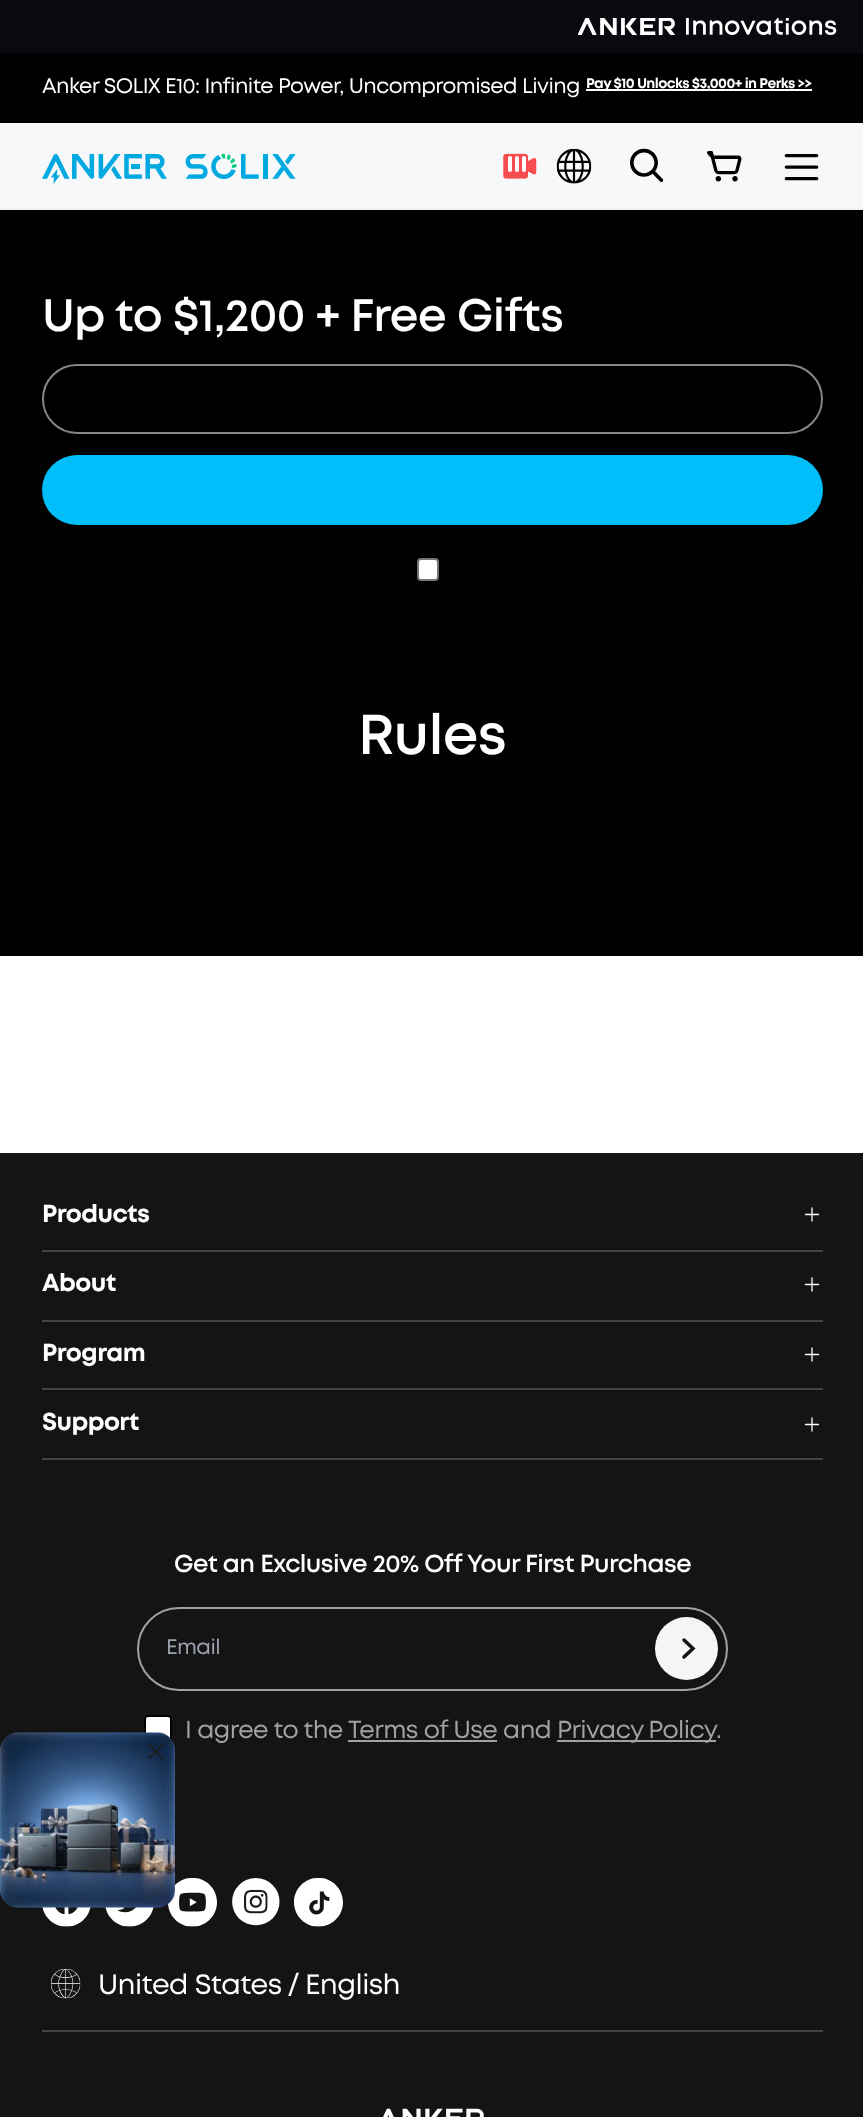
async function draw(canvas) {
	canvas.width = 863;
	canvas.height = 2117;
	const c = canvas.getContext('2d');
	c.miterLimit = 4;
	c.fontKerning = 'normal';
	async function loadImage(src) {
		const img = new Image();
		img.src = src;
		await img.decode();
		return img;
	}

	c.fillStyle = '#fff';
	c.fillRect(0, 0, 863, 2117);
	c.fillStyle = '#080a0f';
	c.fillRect(0, 0, 863, 53);
	c.drawImage(await loadImage('img1.png'), 578, 18, 259, 17);
	c.fillStyle = '#000';
	c.fillRect(0, 53, 863, 70);
	c.letterSpacing = '-0.55px';
	c.font = '21px "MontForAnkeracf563"';
	c.fillStyle = '#fff';
	c.fillText('Anker SOLIX E10: Infinite Power, Uncompromised Living', 42, 93);
	c.fillRect(586, 89, 226, 2);
	c.font = 'bold 14px "MontForAnkeracf563"';
	c.fillText('Pay $10 Unlocks $3,000+ in Perks >>', 586, 88);
	c.fillStyle = '#f7f8fa';
	c.fillRect(0, 123, 863, 85);
	c.fillStyle = '#f2f2f2';
	c.fillRect(0, 208, 863, 2);
	c.drawImage(await loadImage('img2.png'), 42, 153, 254, 31);
	c.drawImage(await loadImage('img3.png'), 503, 153, 34, 26);
	c.fillStyle = '#fff';
	c.beginPath();
	c.roundRect(508, 156, 4, 16, 2);
	c.fill();
	c.beginPath();
	c.roundRect(515, 156, 4, 16, 2);
	c.fill();
	c.beginPath();
	c.roundRect(522, 156, 4, 16, 2);
	c.fill();
	c.drawImage(await loadImage('img4.png'), 556, 149, 36, 35);
	c.drawImage(await loadImage('img5.png'), 630, 148, 34, 34);
	c.drawImage(await loadImage('img6.png'), 707, 151, 35, 31);
	c.drawImage(await loadImage('img7.png'), 784, 154, 35, 27);
	c.fillStyle = '#000';
	c.fillRect(0, 210, 863, 371);
	c.font = '600 45.5px "MontForAnkeracf563"';
	c.fillStyle = '#fff';
	c.fillText('Up to $1,200 + Free Gifts', 42, 331);
	c.beginPath();
	c.roundRect(43, 365, 779, 68, 34);
	c.strokeStyle = '#86868a';
	c.lineWidth = 2;
	c.stroke();
	c.fillStyle = '#00befa';
	c.beginPath();
	c.roundRect(42, 455, 781, 70, 35);
	c.fill();
	c.fillStyle = '#fff';
	c.beginPath();
	c.roundRect(418, 559, 20, 21, 3);
	c.fill();
	c.strokeStyle = '#767676';
	c.stroke();
	c.fillStyle = '#000101';
	c.fillRect(0, 581, 863, 375);
	c.font = '600 56px "MontForAnkeracf563"';
	c.fillStyle = '#fff';
	c.fillText('Rules', 358, 754);
	c.fillStyle = '#141414';
	c.fillRect(0, 1153, 863, 964);
	c.fillStyle = '#434343';
	c.fillRect(42, 1250, 781, 2);
	c.font = 'bold 24.5px "MontForAnkeracf563"';
	c.fillStyle = '#fff';
	c.fillText('Products', 42, 1222);
	c.beginPath();
	c.moveTo(812, 1208);
	c.lineTo(812, 1221);
	c.moveTo(818.5, 1214.5);
	c.lineTo(805.5, 1214.5);
	c.strokeStyle = '#fff';
	c.lineWidth = 1.3;
	c.lineCap = 'round';
	c.lineJoin = 'round';
	c.stroke();
	c.fillStyle = '#434343';
	c.fillRect(42, 1320, 781, 2);
	c.fillStyle = '#fff';
	c.fillText('About', 42, 1291);
	c.beginPath();
	c.moveTo(812, 1278);
	c.lineTo(812, 1291);
	c.moveTo(818.5, 1284.5);
	c.lineTo(805.5, 1284.5);
	c.stroke();
	c.fillStyle = '#434343';
	c.fillRect(42, 1388, 781, 2);
	c.fillStyle = '#fff';
	c.fillText('Program', 42, 1361);
	c.beginPath();
	c.moveTo(812, 1348);
	c.lineTo(812, 1361);
	c.moveTo(818.5, 1354.5);
	c.lineTo(805.5, 1354.5);
	c.stroke();
	c.fillStyle = '#434343';
	c.fillRect(42, 1458, 781, 2);
	c.fillStyle = '#fff';
	c.fillText('Support', 42, 1430);
	c.beginPath();
	c.moveTo(812, 1418);
	c.lineTo(812, 1431);
	c.moveTo(818.5, 1424.5);
	c.lineTo(805.5, 1424.5);
	c.stroke();
	c.font = '600 24.5px "MontForAnkeracf563"';
	c.fillText('Get an Exclusive 20% Off Your First Purchase', 174, 1572);
	c.beginPath();
	c.roundRect(138, 1608, 589, 82, 41);
	c.strokeStyle = '#a1a1a1';
	c.lineWidth = 2;
	c.lineJoin = 'miter';
	c.stroke();
	c.font = '21px "MontForAnkeracf563"';
	c.fillStyle = '#9ca3af';
	c.fillText('Email', 166, 1654);
	c.fillStyle = '#f5f5f7';
	c.beginPath();
	c.arc(686.5, 1648.5, 31.5, 0, 2 * Math.PI);
	c.fill();
	c.beginPath();
	c.moveTo(684, 1640);
	c.lineTo(693, 1648.5);
	c.lineTo(684, 1657);
	c.strokeStyle = '#141414';
	c.lineWidth = 3.5;
	c.stroke();
	c.fillStyle = '#fff';
	c.beginPath();
	c.roundRect(145, 1716, 26, 26, 3);
	c.fill();
	c.strokeStyle = '#000';
	c.lineWidth = 2;
	c.stroke();
	c.font = '24.5px "MontForAnkeracf563"';
	c.fillStyle = '#a1a1a1';
	c.fillText('I agree to the', 185, 1738);
	c.fillText('Terms of Use and', 348, 1738);
	c.fillRect(348, 1740, 149, 2);
	c.fillRect(557, 1740, 159, 2);
	c.wordSpacing = '-1px';
	c.fillText('Privacy Policy', 557, 1738);
	c.wordSpacing = '0px';
	c.fillText('.', 716, 1738);
	c.fillStyle = '#434343';
	c.fillRect(42, 2030, 781, 2);
	c.drawImage(await loadImage('img8.png'), 42, 1907, 49, 20);
	c.drawImage(await loadImage('img9.png'), 105, 1907, 49, 20);
	c.drawImage(await loadImage('img10.png'), 168, 1878, 49, 49);
	c.drawImage(await loadImage('img11.png'), 232, 1878, 48, 48);
	c.drawImage(await loadImage('img12.png'), 294, 1878, 49, 49);
	c.drawImage(await loadImage('img13.png'), 51, 1969, 30, 30);
	c.font = '28px "MontForAnkeracf563"';
	c.fillStyle = '#fff';
	c.fillText('United States / English', 98, 1994);
	c.drawImage(await loadImage('img14.png'), 383, 2108, 101, 9);
	c.drawImage(await loadImage('img15.png'), 0, 1732, 175, 176);
	c.beginPath();
	c.moveTo(149.5, 1758);
	c.lineTo(162, 1745.5);
	c.moveTo(149.5, 1745.5);
	c.lineTo(162, 1758);
	c.strokeStyle = '#1d1d1f';
	c.lineJoin = 'round';
	c.stroke();
}

draw(document.querySelector('canvas'));
